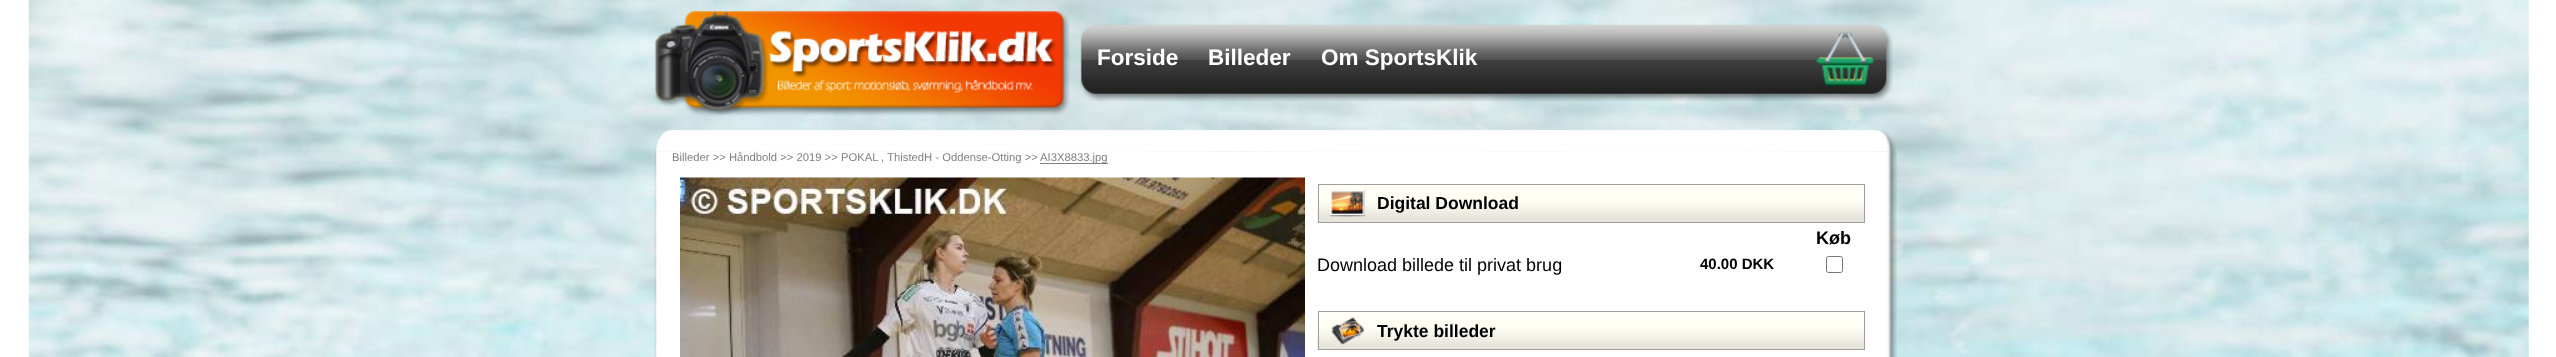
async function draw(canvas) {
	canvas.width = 2556;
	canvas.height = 357;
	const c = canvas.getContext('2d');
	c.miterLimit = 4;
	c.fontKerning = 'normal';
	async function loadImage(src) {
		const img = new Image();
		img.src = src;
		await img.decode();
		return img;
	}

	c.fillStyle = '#fff';
	c.fillRect(0, 0, 2556, 357);
	c.drawImage(await loadImage('img1.png'), 28, 0, 2501, 357);
	c.drawImage(await loadImage('img2.png'), 654, 11, 416, 105);
	c.drawImage(await loadImage('img3.png'), 1080, 24, 813, 78);
	c.font = 'bold 22.5px Liberation Sans';
	for (const [text, x, y] of [
		['Forside', 1097, 65],
		['Billeder', 1208, 65],
		['Om SportsKlik', 1321, 65],
	]) {
		c.fillText(text, x, y);
	}
	c.drawImage(await loadImage('img4.png'), 1816, 31, 58, 56);
	c.drawImage(await loadImage('img5.png'), 655, 130, 1242, 22);
	c.drawImage(await loadImage('img6.png'), 654, 151, 1243, 206);
	c.font = '11.25px Liberation Sans';
	c.fillStyle = '#808080';
	c.fillText('Billeder >> Håndbold >> 2019 >> POKAL , ThistedH - Oddense-Otting >>', 672, 161);
	c.fillRect(1040, 163, 68, 1);
	c.fillText('AI3X8833.jpg', 1040, 161);
	c.drawImage(await loadImage('img7.png'), 680, 177, 625, 180);
	c.drawImage(await loadImage('img8.png'), 1317, 185, 547, 38);
	c.strokeStyle = '#9e9e9e';
	c.strokeRect(1318.5, 184.5, 546, 38);
	c.drawImage(await loadImage('img9.png'), 1330, 190, 35, 28);
	c.font = 'bold 17.5px Liberation Sans';
	c.fillStyle = '#000';
	c.fillText('Digital Download', 1377, 209);
	c.font = 'bold 18px Liberation Sans';
	c.fillText('Køb', 1816, 244);
	c.font = '18px Liberation Sans';
	c.fillText('Download billede til privat brug', 1317, 271);
	c.font = 'bold 15px Liberation Sans';
	c.fillText('40.00 DKK', 1700, 269);
	c.beginPath();
	c.roundRect(1826.5, 256.5, 16, 16, 2);
	c.strokeStyle = '#767676';
	c.stroke();
	c.drawImage(await loadImage('img10.png'), 1317, 312, 547, 38);
	c.strokeStyle = '#9e9e9e';
	c.strokeRect(1318.5, 311.5, 546, 38);
	c.drawImage(await loadImage('img11.png'), 1331, 317, 33, 28);
	c.font = 'bold 17.5px Liberation Sans';
	c.fillText('Trykte billeder', 1377, 337);
}

draw(document.querySelector('canvas'));
